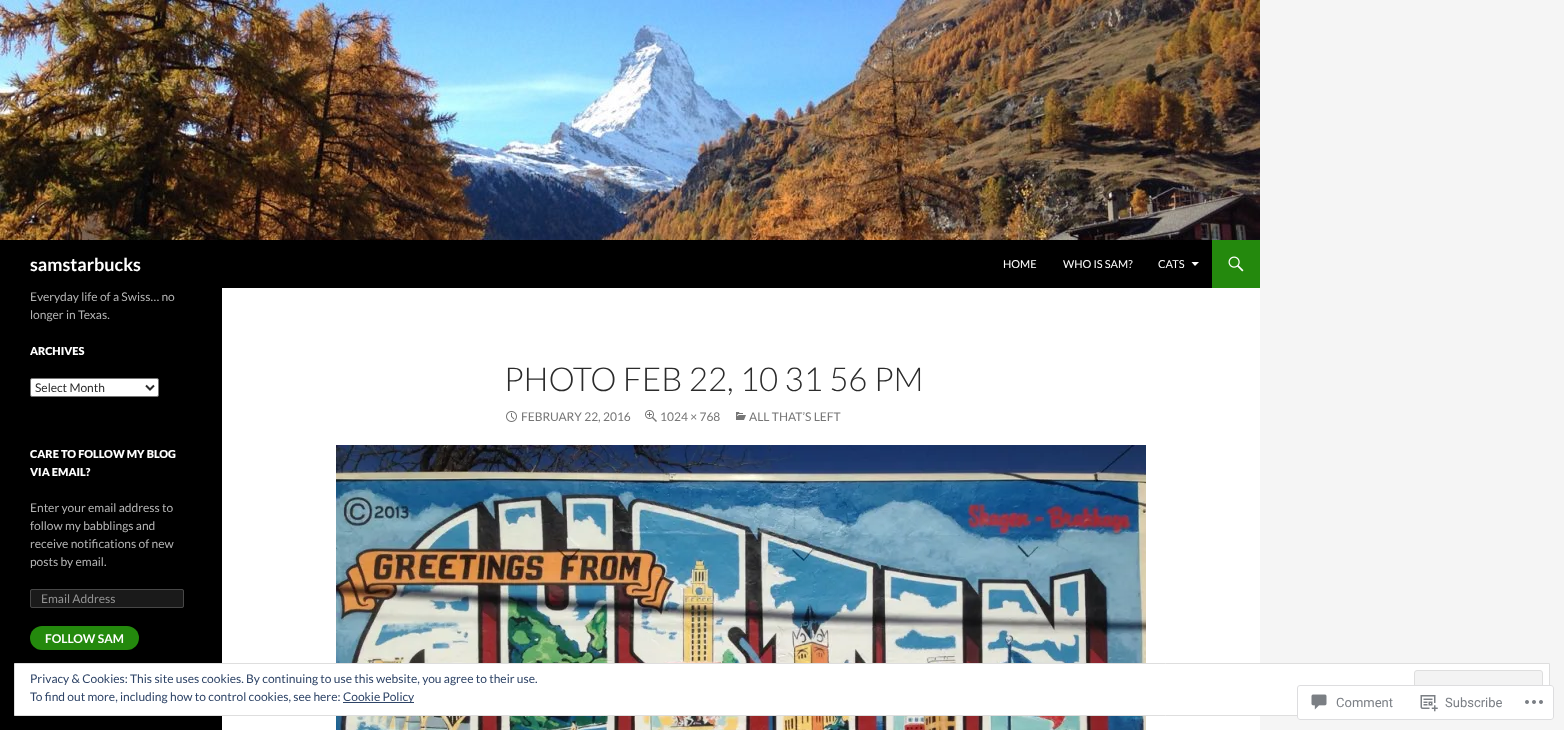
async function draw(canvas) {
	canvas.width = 1564;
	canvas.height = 730;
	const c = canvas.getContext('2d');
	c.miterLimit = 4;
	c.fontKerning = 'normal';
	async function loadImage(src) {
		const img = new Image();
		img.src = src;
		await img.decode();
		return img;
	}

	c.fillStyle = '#f5f5f5';
	c.fillRect(0, 0, 1564, 730);
	c.fillStyle = '#fff';
	c.fillRect(222, 288, 1038, 442);
	c.drawImage(await loadImage('img1.png'), 0, 0, 1260, 240);
	c.fillStyle = '#000';
	c.fillRect(0, 240, 1212, 48);
	c.font = 'bold 18px Lato';
	c.fillStyle = '#fff';
	c.fillText('samstarbucks', 30, 271);
	c.font = '11px Lato';
	for (const [text, x, y] of [
		['HOME', 1003, 268],
		['WHO IS SAM?', 1063, 268],
		['CATS', 1158, 268],
	]) {
		c.fillText(text, x, y);
	}
	c.beginPath();
	c.moveTo(1191.5, 262);
	c.lineTo(1199, 262);
	c.lineTo(1195, 266);
	c.closePath();
	c.fill();
	c.fillStyle = '#24890d';
	c.fillRect(1212, 240, 48, 48);
	c.drawImage(await loadImage('img2.png'), 1228, 256, 16, 16);
	c.fillStyle = '#000';
	c.fillRect(0, 288, 222, 442);
	c.font = '12px Lato';
	c.fillStyle = '#b3b3b3';
	c.fillText('Everyday life of a Swiss… no', 30, 301);
	c.fillText('longer in Texas.', 30, 319);
	c.font = '900 11px Lato';
	c.fillStyle = '#fff';
	c.fillText('ARCHIVES', 30, 355);
	c.beginPath();
	c.roundRect(30.5, 378.5, 128, 18, 1.5);
	c.fill();
	c.strokeStyle = '#767676';
	c.stroke();
	c.beginPath();
	c.moveTo(146, 385.5);
	c.lineTo(150, 389.5);
	c.lineTo(154, 385.5);
	c.strokeStyle = '#2b2b2b';
	c.lineWidth = 2;
	c.stroke();
	c.font = '12px Lato';
	c.fillStyle = '#2b2b2b';
	c.fillText('Select Month', 35, 392);
	c.font = '900 11px Lato';
	c.fillStyle = '#fff';
	c.fillText('CARE TO FOLLOW MY BLOG', 30, 458);
	c.fillText('VIA EMAIL?', 30, 476);
	c.font = '12px Lato';
	c.fillStyle = '#b3b3b3';
	for (const [text, x, y] of [
		['Enter your email address to', 30, 512],
		['follow my babblings and', 30, 530],
		['receive notifications of new', 30, 548],
		['posts by email.', 30, 566],
	]) {
		c.fillText(text, x, y);
	}
	c.fillStyle = '#1a1a1a';
	c.beginPath();
	c.roundRect(30, 589, 154, 19, 2);
	c.fill();
	c.beginPath();
	c.roundRect(30.5, 589.5, 153, 18, 1.5);
	c.strokeStyle = '#ffffff33';
	c.lineWidth = 1;
	c.stroke();
	c.fillStyle = '#939393';
	c.fillText('Email Address', 41, 603);
	c.fillStyle = '#24890d';
	c.beginPath();
	c.roundRect(30, 626, 109, 24, 12);
	c.fill();
	c.font = 'bold 12px Lato';
	c.fillStyle = '#fff';
	c.fillText('FOLLOW SAM', 45, 643);
	c.font = '300 33px Lato';
	c.fillStyle = '#2b2b2b';
	c.fillText('PHOTO FEB 22, 10 31 56 PM', 504, 391);
	c.drawImage(await loadImage('img3.png'), 506, 411, 11, 11);
	c.font = '12px Lato';
	c.fillStyle = '#767676';
	c.fillText('FEBRUARY 22, 2016', 521, 421);
	c.drawImage(await loadImage('img4.png'), 645, 410, 12, 12);
	c.fillText('1024 × 768', 660, 421);
	c.drawImage(await loadImage('img5.png'), 736, 412, 10, 8);
	c.fillText('ALL THAT’S LEFT', 749, 421);
	c.drawImage(await loadImage('img6.png'), 336, 445, 810, 285);
	c.fillStyle = '#fff';
	c.beginPath();
	c.rect(14.5, 663.5, 1535, 52);
	c.fill();
	c.strokeStyle = '#dedede';
	c.stroke();
	c.fillStyle = '#2e4467';
	c.fillText('Privacy & Cookies: This site uses cookies. By continuing to use this website, you agree to their use.', 30, 683);
	c.fillStyle = '#f3f3f3';
	c.beginPath();
	c.roundRect(1414.5, 670.5, 128, 38, 2.5);
	c.fill();
	c.stroke();
	c.fillStyle = '#2e4467';
	c.fillText('To find out more, including how to control cookies, see here:', 30, 701);
	c.fillRect(343, 702, 71, 1);
	c.fillText('Cookie Policy', 343, 701);
	c.fillStyle = '#fffffffa';
	c.beginPath();
	c.roundRect(1297, 685, 257, 35, 3);
	c.fill();
	c.beginPath();
	c.roundRect(1297.5, 685.5, 256, 34, 2.5);
	c.strokeStyle = '#dcdcdefa';
	c.stroke();
	c.drawImage(await loadImage('img7.png'), 1311, 694, 16, 16);
	c.font = '13px Roboto';
	c.fillStyle = '#7b7f85';
	c.fillText('Comment', 1336, 707);
	c.drawImage(await loadImage('img8.png'), 1420, 695, 18, 17);
	c.fillText('Subscribe', 1445, 707);
	c.drawImage(await loadImage('img9.png'), 1525, 700, 18, 4);
}

draw(document.querySelector('canvas'));
